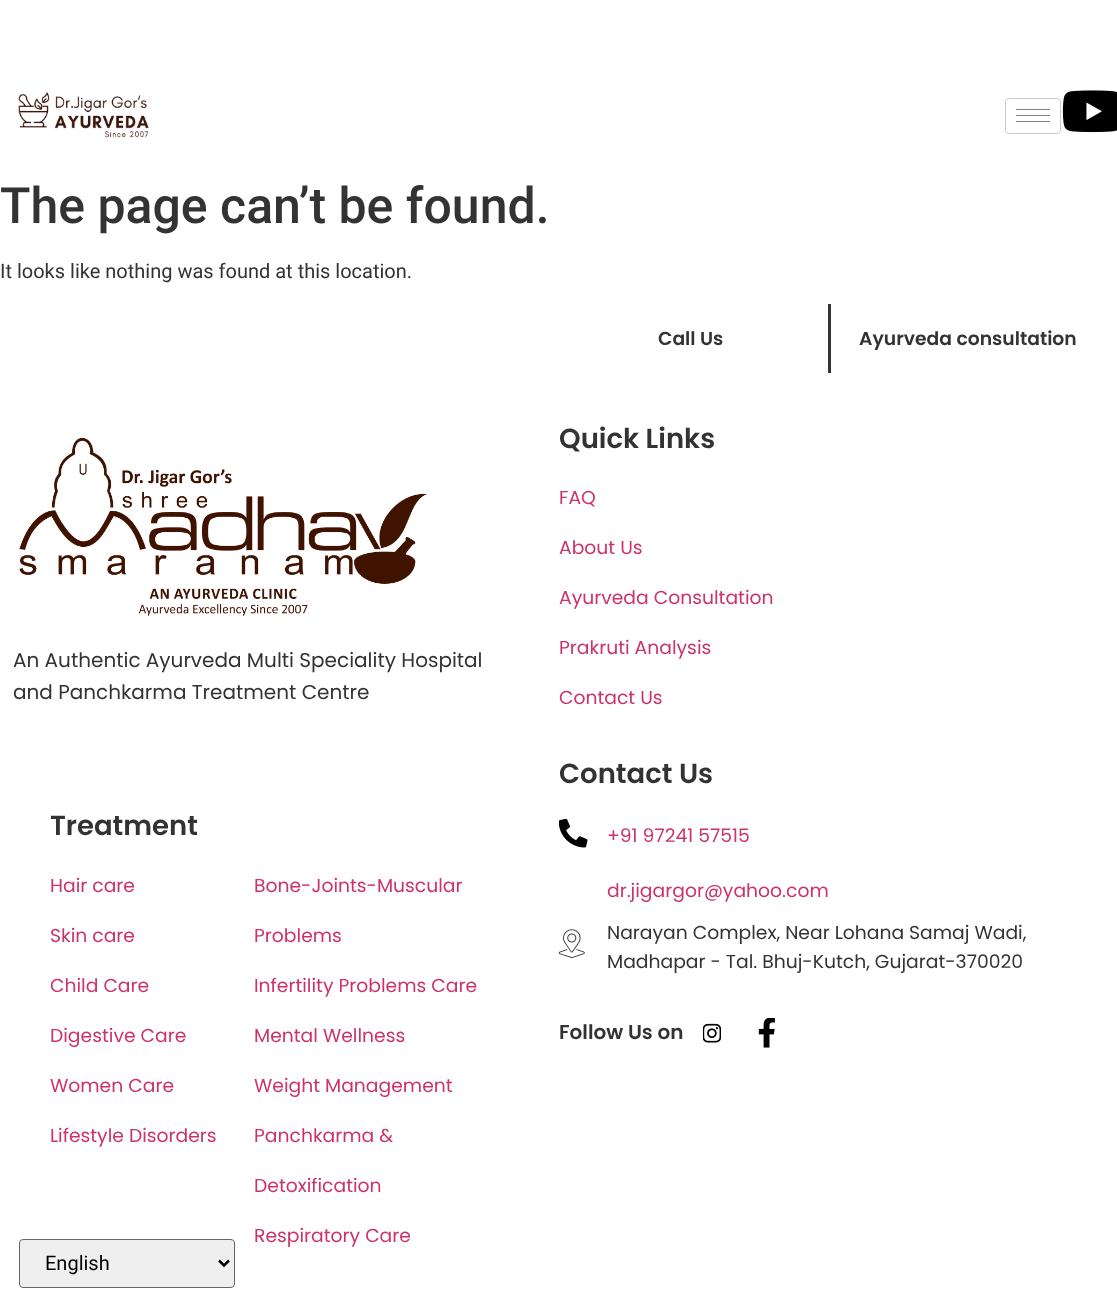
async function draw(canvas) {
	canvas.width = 1117;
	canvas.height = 1306;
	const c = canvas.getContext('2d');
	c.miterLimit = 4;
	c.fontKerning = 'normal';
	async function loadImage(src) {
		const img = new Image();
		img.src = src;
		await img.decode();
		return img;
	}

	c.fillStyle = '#fff';
	c.fillRect(0, 0, 1117, 1306);
	c.drawImage(await loadImage('img1.png'), 18, 92, 131, 46);
	c.beginPath();
	c.roundRect(1005.5, 98.5, 55, 35, 3.5);
	c.strokeStyle = '#ccc';
	c.stroke();
	for (const [x, y, w, h, color] of [
		[1016, 109, 34, 1, '#808080'],
		[1016, 115, 34, 1, '#808080'],
		[1016, 121, 34, 1, '#808080'],
	]) {
		c.fillStyle = color;
		c.fillRect(x, y, w, h);
	}
	c.drawImage(await loadImage('img2.png'), 1062, 90, 55, 43);
	c.font = '500 50px Roboto';
	c.fillStyle = '#333';
	c.fillText('The page can’t be found.', 0, 223);
	c.font = '20px Roboto';
	c.fillText('It looks like nothing was found at this location.', 0, 278);
	c.font = '600 18.75px Poppins';
	c.fillText('Call Us', 658, 345);
	c.fillRect(828, 304, 3, 69);
	c.fillText('Ayurveda consultation', 859, 345);
	c.drawImage(await loadImage('img3.png'), 19, 437, 408, 179);
	c.font = '20px Poppins';
	c.fillText('An Authentic Ayurveda Multi Speciality Hospital', 13, 667);
	c.fillText('and Panchkarma Treatment Centre', 13, 699);
	c.font = '600 27.5px Poppins';
	c.fillText('Quick Links', 559, 448);
	c.font = '18.75px Poppins';
	c.fillStyle = '#c36';
	for (const [text, x, y] of [
		['FAQ', 559, 504],
		['About Us', 559, 554],
		['Ayurveda Consultation', 559, 604],
		['Prakruti Analysis', 559, 654],
		['Contact Us', 559, 704],
	]) {
		c.fillText(text, x, y);
	}
	c.font = '600 27.5px Poppins';
	c.fillStyle = '#333';
	c.fillText('Treatment', 50, 835);
	c.font = '18.75px Poppins';
	c.fillStyle = '#c36';
	for (const [text, x, y] of [
		['Hair care', 50, 892],
		['Skin care', 50, 942],
		['Child Care', 50, 992],
		['Digestive Care', 50, 1042],
		['Women Care', 50, 1092],
		['Lifestyle Disorders', 50, 1142],
		['Bone-Joints-Muscular', 254, 892],
		['Problems', 254, 942],
		['Infertility Problems Care', 254, 992],
		['Mental Wellness', 254, 1042],
		['Weight Management', 254, 1092],
		['Panchkarma &', 254, 1142],
		['Detoxification', 254, 1192],
		['Respiratory Care', 254, 1242],
	]) {
		c.fillText(text, x, y);
	}
	c.font = '600 27.5px Poppins';
	c.fillStyle = '#333';
	c.fillText('Contact Us', 559, 783);
	c.drawImage(await loadImage('img4.png'), 559, 819, 29, 29);
	c.font = '18.75px Poppins';
	c.fillStyle = '#c36';
	c.fillText('+91 97241 57515', 607, 842);
	c.fillText('dr.jigargor@yahoo.com', 607, 897);
	c.drawImage(await loadImage('img5.png'), 558, 929, 27, 30);
	c.fillStyle = '#333';
	c.fillText('Narayan Complex, Near Lohana Samaj Wadi,', 607, 939);
	c.fillText('Madhapar - Tal. Bhuj-Kutch, Gujarat-370020', 607, 968);
	c.font = '600 20px Poppins';
	c.fillText('Follow Us on', 559, 1039);
	c.drawImage(await loadImage('img6.png'), 703, 1023, 18, 20);
	c.drawImage(await loadImage('img7.png'), 758, 1018, 17, 30);
	c.fillStyle = '#efefef';
	c.beginPath();
	c.roundRect(19.5, 1239.5, 215, 48, 3.5);
	c.fill();
	c.strokeStyle = '#666';
	c.stroke();
	c.beginPath();
	c.moveTo(219, 1260.5);
	c.lineTo(224, 1265.5);
	c.lineTo(229, 1260.5);
	c.strokeStyle = '#000';
	c.lineWidth = 2.5;
	c.stroke();
	c.font = '20px Roboto';
	c.fillStyle = '#000';
	c.fillText('English', 45, 1270);
}

draw(document.querySelector('canvas'));
